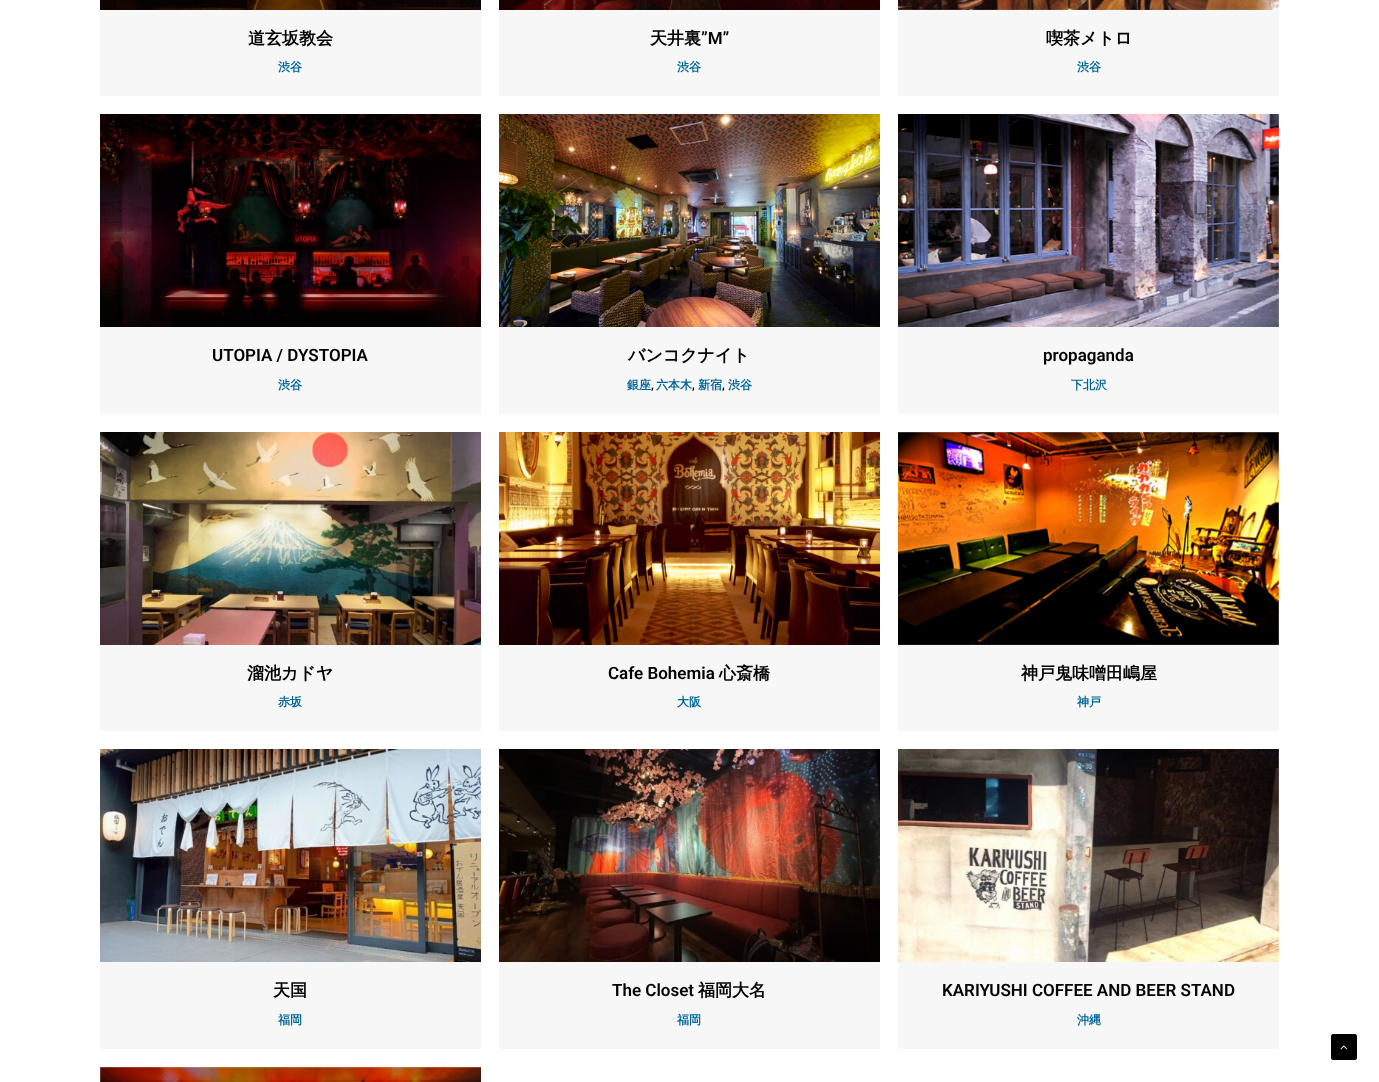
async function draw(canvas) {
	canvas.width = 1379;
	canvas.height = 1082;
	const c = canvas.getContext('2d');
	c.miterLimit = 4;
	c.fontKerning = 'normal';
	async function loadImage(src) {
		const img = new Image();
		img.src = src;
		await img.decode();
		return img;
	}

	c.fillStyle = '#fff';
	c.fillRect(0, 0, 1379, 1082);
	c.fillStyle = '#f7f7f7';
	c.fillRect(100, 10, 381, 86);
	c.drawImage(await loadImage('img1.png'), 100, 0, 381, 10);
	c.font = 'bold 17px WenQuanYi Zen Hei';
	c.fillStyle = '#000';
	c.fillText('道玄坂教会', 248, 44);
	c.font = 'bold 12px WenQuanYi Zen Hei';
	c.fillStyle = '#069';
	c.fillText('渋谷', 278, 71);
	c.fillStyle = '#f7f7f7';
	c.fillRect(499, 10, 381, 86);
	c.drawImage(await loadImage('img2.png'), 499, 0, 381, 10);
	c.font = 'bold 17px WenQuanYi Zen Hei';
	c.fillStyle = '#000';
	c.fillText('天井裏', 650, 44);
	c.font = '600 17px Roboto';
	c.fillText('”M”', 701, 44);
	c.font = 'bold 12px WenQuanYi Zen Hei';
	c.fillStyle = '#069';
	c.fillText('渋谷', 677, 71);
	c.fillStyle = '#f7f7f7';
	c.fillRect(898, 0, 381, 96);
	c.drawImage(await loadImage('img3.png'), 898, 0, 381, 10);
	c.font = 'bold 17px WenQuanYi Zen Hei';
	c.fillStyle = '#000';
	c.fillText('喫茶メトロ', 1046, 44);
	c.font = 'bold 12px WenQuanYi Zen Hei';
	c.fillStyle = '#069';
	c.fillText('渋谷', 1077, 71);
	c.fillStyle = '#f7f7f7';
	c.fillRect(100, 327, 381, 87);
	c.drawImage(await loadImage('img4.png'), 100, 114, 381, 213);
	c.font = '600 17px Roboto';
	c.fillStyle = '#000';
	c.fillText('UTOPIA / DYSTOPIA', 212, 361);
	c.font = 'bold 12px WenQuanYi Zen Hei';
	c.fillStyle = '#069';
	c.fillText('渋谷', 278, 389);
	c.fillStyle = '#f7f7f7';
	c.fillRect(499, 327, 381, 87);
	c.drawImage(await loadImage('img5.png'), 499, 114, 381, 213);
	c.font = 'bold 17px WenQuanYi Zen Hei';
	c.fillStyle = '#000';
	c.fillText('バンコクナイト', 628, 361);
	c.font = 'bold 12px WenQuanYi Zen Hei';
	c.fillStyle = '#069';
	c.fillText('銀座', 627, 389);
	c.font = '600 12px Roboto';
	c.fillStyle = '#000';
	c.fillText(',', 651, 389);
	c.font = 'bold 12px WenQuanYi Zen Hei';
	c.fillStyle = '#069';
	c.fillText('六本木', 656, 389);
	c.font = '600 12px Roboto';
	c.fillStyle = '#000';
	c.fillText(',', 692, 389);
	c.font = 'bold 12px WenQuanYi Zen Hei';
	c.fillStyle = '#069';
	c.fillText('新宿', 698, 389);
	c.font = '600 12px Roboto';
	c.fillStyle = '#000';
	c.fillText(',', 722, 389);
	c.font = 'bold 12px WenQuanYi Zen Hei';
	c.fillStyle = '#069';
	c.fillText('渋谷', 728, 389);
	c.fillStyle = '#f7f7f7';
	c.fillRect(898, 114, 381, 300);
	c.drawImage(await loadImage('img6.png'), 898, 114, 381, 213);
	c.font = '600 17px Roboto';
	c.fillStyle = '#000';
	c.fillText('propaganda', 1043, 361);
	c.font = 'bold 12px WenQuanYi Zen Hei';
	c.fillStyle = '#069';
	c.fillText('下北沢', 1071, 389);
	c.fillStyle = '#f7f7f7';
	c.fillRect(100, 645, 381, 86);
	c.drawImage(await loadImage('img7.png'), 100, 432, 381, 213);
	c.font = 'bold 17px WenQuanYi Zen Hei';
	c.fillStyle = '#000';
	c.fillText('溜池カドヤ', 247, 679);
	c.font = 'bold 12px WenQuanYi Zen Hei';
	c.fillStyle = '#069';
	c.fillText('赤坂', 278, 706);
	c.fillStyle = '#f7f7f7';
	c.fillRect(499, 645, 381, 86);
	c.drawImage(await loadImage('img8.png'), 499, 432, 381, 213);
	c.font = '600 17px Roboto';
	c.fillStyle = '#000';
	c.fillText('Cafe Bohemia', 608, 679);
	c.font = 'bold 17px WenQuanYi Zen Hei';
	c.fillText('心斎橋', 719, 679);
	c.font = 'bold 12px WenQuanYi Zen Hei';
	c.fillStyle = '#069';
	c.fillText('大阪', 677, 706);
	c.fillStyle = '#f7f7f7';
	c.fillRect(898, 432, 381, 299);
	c.drawImage(await loadImage('img9.png'), 898, 432, 381, 213);
	c.font = 'bold 17px WenQuanYi Zen Hei';
	c.fillStyle = '#000';
	c.fillText('神戸鬼味噌田嶋屋', 1021, 679);
	c.font = 'bold 12px WenQuanYi Zen Hei';
	c.fillStyle = '#069';
	c.fillText('神戸', 1077, 706);
	c.fillStyle = '#f7f7f7';
	c.fillRect(100, 962, 381, 87);
	c.drawImage(await loadImage('img10.png'), 100, 749, 381, 213);
	c.font = 'bold 17px WenQuanYi Zen Hei';
	c.fillStyle = '#000';
	c.fillText('天国', 273, 996);
	c.font = 'bold 12px WenQuanYi Zen Hei';
	c.fillStyle = '#069';
	c.fillText('福岡', 278, 1024);
	c.fillStyle = '#f7f7f7';
	c.fillRect(499, 962, 381, 87);
	c.drawImage(await loadImage('img11.png'), 499, 749, 381, 213);
	c.font = '600 17px Roboto';
	c.fillStyle = '#000';
	c.fillText('The Closet', 612, 996);
	c.font = 'bold 17px WenQuanYi Zen Hei';
	c.fillText('福岡大名', 698, 996);
	c.font = 'bold 12px WenQuanYi Zen Hei';
	c.fillStyle = '#069';
	c.fillText('福岡', 677, 1024);
	c.fillStyle = '#f7f7f7';
	c.fillRect(898, 749, 381, 300);
	c.drawImage(await loadImage('img12.png'), 898, 749, 381, 213);
	c.font = '600 17px Roboto';
	c.fillStyle = '#000';
	c.fillText('KARIYUSHI COFFEE AND BEER STAND', 942, 996);
	c.font = 'bold 12px WenQuanYi Zen Hei';
	c.fillStyle = '#069';
	c.fillText('沖縄', 1077, 1024);
	c.fillStyle = '#f7f7f7';
	c.fillRect(100, 1067, 381, 15);
	c.drawImage(await loadImage('img13.png'), 100, 1067, 381, 15);
	c.fillStyle = '#000';
	c.beginPath();
	c.roundRect(1331.5, 1034.5, 25, 25, 1.5);
	c.fill();
	c.strokeStyle = '#000';
	c.stroke();
	c.drawImage(await loadImage('img14.png'), 1340, 1045, 8, 5);
}

draw(document.querySelector('canvas'));
